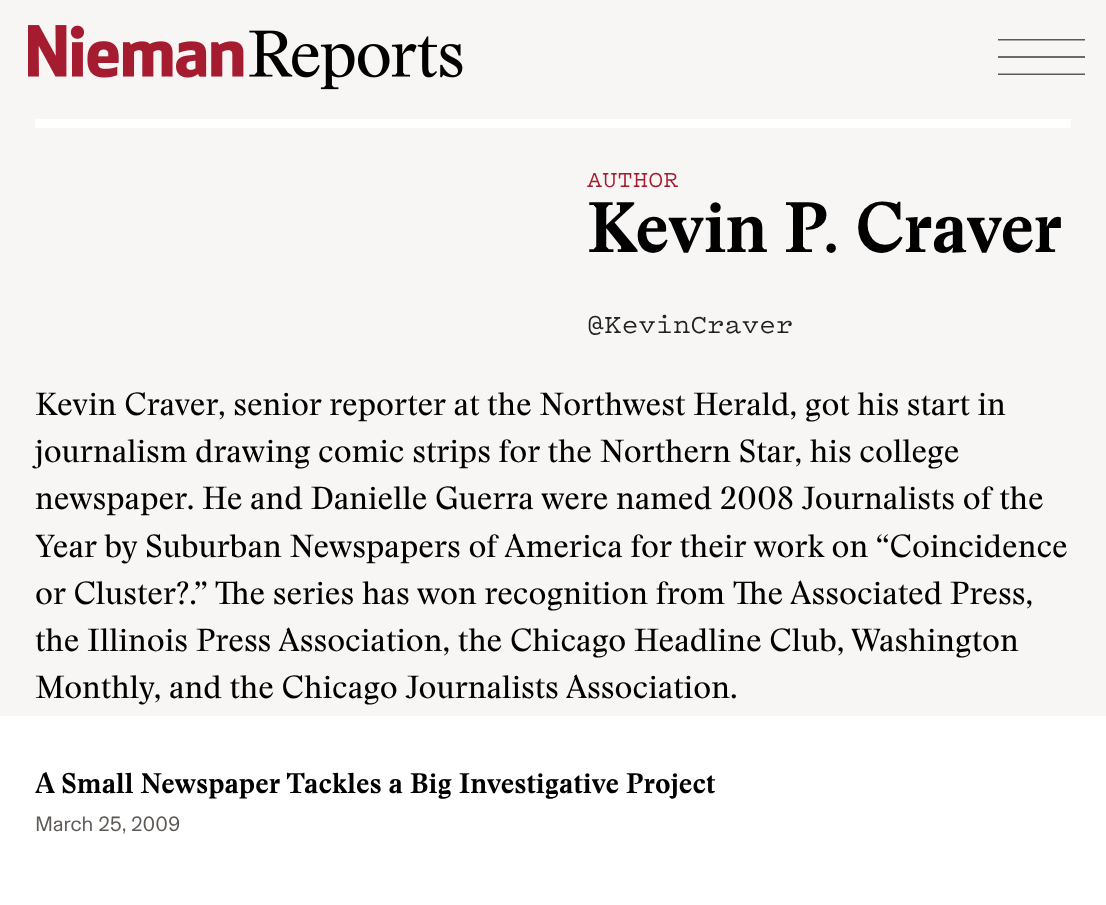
async function draw(canvas) {
	canvas.width = 1106;
	canvas.height = 905;
	const c = canvas.getContext('2d');
	c.miterLimit = 4;
	c.fontKerning = 'normal';
	async function loadImage(src) {
		const img = new Image();
		img.src = src;
		await img.decode();
		return img;
	}

	c.fillStyle = '#f7f6f5';
	c.fillRect(0, 0, 1106, 905);
	c.drawImage(await loadImage('img1.png'), 28, 25, 435, 65);
	c.fillStyle = '#6c6967';
	c.fillRect(998, 56, 87, 2);
	c.save();
	c.beginPath();
	c.rect(998, 39, 87, 36);
	c.clip();
	c.beginPath();
	c.moveTo(997.5, 74.5);
	c.lineTo(1085, 74.5);
	c.strokeStyle = '#5c5957';
	c.lineWidth = 1.8;
	c.stroke();
	c.beginPath();
	c.moveTo(997.5, 39.5);
	c.lineTo(1085, 39.5);
	c.stroke();
	c.restore();
	c.fillStyle = '#fff';
	c.fillRect(35, 119, 1036, 9);
	c.letterSpacing = '0.25px';
	c.font = '500 24.5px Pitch';
	c.fillStyle = '#a51c30';
	c.fillText('AUTHOR', 587, 187);
	c.letterSpacing = '-0.75px';
	c.font = 'bold 70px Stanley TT';
	c.fillStyle = '#000';
	c.fillText('Kevin P. Craver', 587, 252);
	c.letterSpacing = '0px';
	c.font = '500 28px Pitch';
	c.fillStyle = '#242221';
	c.fillText('@KevinCraver', 587, 333);
	c.font = '31.5px Stanley TT';
	c.fillStyle = '#000';
	for (const [text, x, y] of [
		['Kevin Craver, senior reporter at the Northwest Herald, got his start in', 35, 415],
		['journalism drawing comic strips for the Northern Star, his college', 35, 462],
		['newspaper. He and Danielle Guerra were named 2008 Journalists of the', 35, 509],
		['Year by Suburban Newspapers of America for their work on “Coincidence', 35, 557],
		['or Cluster?.” The series has won recognition from The Associated Press,', 35, 604],
		['the Illinois Press Association, the Chicago Headline Club, Washington', 35, 651],
		['Monthly, and the Chicago Journalists Association.', 35, 698],
	]) {
		c.fillText(text, x, y);
	}
	c.fillStyle = '#fff';
	c.fillRect(0, 716, 1106, 189);
	c.font = 'bold 28px Stanley TT';
	c.fillStyle = '#000';
	c.fillText('A Small Newspaper Tackles a Big Investigative Project', 35, 793);
	c.font = '21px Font';
	c.fillStyle = '#5c5957';
	c.fillText('March 25, 2009', 35, 831);
}

draw(document.querySelector('canvas'));
